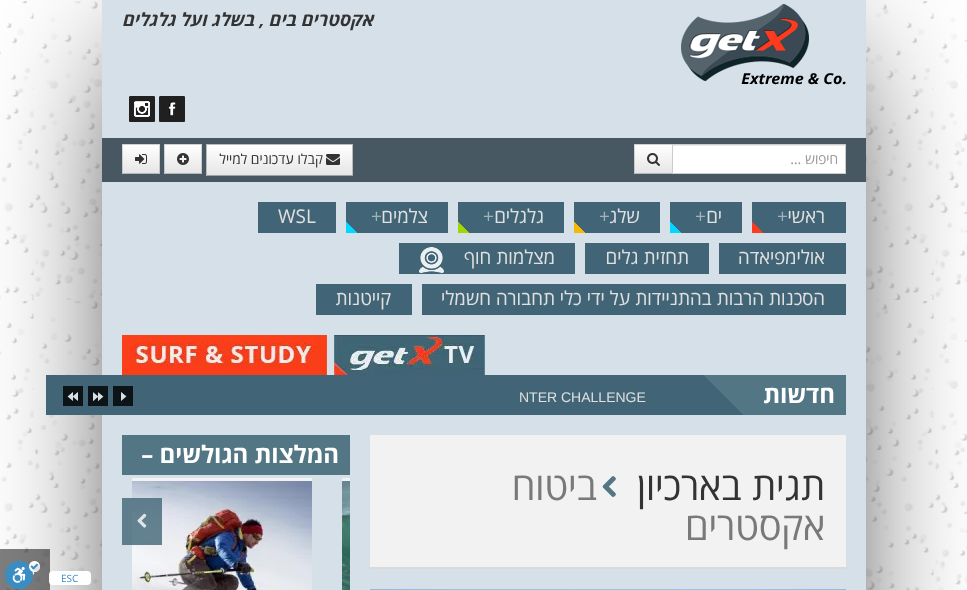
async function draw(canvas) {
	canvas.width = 967;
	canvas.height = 590;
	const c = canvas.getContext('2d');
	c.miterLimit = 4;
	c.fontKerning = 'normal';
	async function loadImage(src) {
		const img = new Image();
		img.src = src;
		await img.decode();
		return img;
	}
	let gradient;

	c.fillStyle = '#fff';
	c.fillRect(0, 0, 967, 590);
	c.drawImage(await loadImage('img1.png'), 0, 1, 967, 589);
	c.fillStyle = '#000';
	c.filter = 'blur(75px)';
	c.beginPath();
	c.rect(142, 60, 684, 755);
	c.fill();
	c.filter = 'none';
	c.fillStyle = '#d6e0e9';
	c.fillRect(102, 0, 764, 590);
	c.drawImage(await loadImage('img2.png'), 681, 4, 165, 81);
	c.direction = 'rtl';
	c.font = 'italic bold 18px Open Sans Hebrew';
	c.fillStyle = '#333';
	c.fillText('אקסטרים בים , בשלג ועל גלגלים', 373, 26);
	c.drawImage(await loadImage('img3.png'), 159, 96, 26, 26);
	c.drawImage(await loadImage('img4.png'), 129, 96, 26, 26);
	for (const [x, y, w, h, color] of [
		[102, 138, 764, 44, '#475862'],
		[673, 146, 172, 27, '#fff'],
		[673, 145, 172, 1, '#ececec'],
		[634, 144, 38, 30, '#f5f5f5'],
	]) {
		c.fillStyle = color;
		c.fillRect(x, y, w, h);
	}
	c.fillStyle = '#d0d0d0';
	c.beginPath();
	c.moveTo(634, 144);
	c.lineTo(673, 144);
	c.lineTo(672, 145);
	c.lineTo(635, 145);
	c.closePath();
	c.fill();
	c.fillStyle = '#00000040';
	c.beginPath();
	c.moveTo(673, 174);
	c.lineTo(634, 174);
	c.lineTo(635, 173);
	c.lineTo(672, 173);
	c.closePath();
	c.fill();
	c.strokeStyle = '#ccc';
	c.strokeRect(672.5, 144.5, 173, 29);
	c.font = '14px Open Sans Hebrew';
	c.fillStyle = '#999';
	c.fillText('חיפוש …', 838, 164);
	gradient = c.createLinearGradient(654, 145, 654, 173);
	gradient.addColorStop(0, '#fff');
	gradient.addColorStop(1, '#e6e6e6');
	c.fillStyle = gradient;
	c.fillRect(634, 145, 38, 28);
	c.fillStyle = '#00000026';
	c.beginPath();
	c.moveTo(634, 174);
	c.lineTo(634, 144);
	c.lineTo(635, 145);
	c.lineTo(635, 173);
	c.closePath();
	c.fill();
	c.drawImage(await loadImage('img5.png'), 647, 153, 13, 13);
	gradient = c.createLinearGradient(280, 145, 280, 175);
	gradient.addColorStop(0, '#fff');
	gradient.addColorStop(1, '#e6e6e6');
	c.fillStyle = gradient;
	c.fillRect(207, 145, 145, 30);
	for (const [x, y, w, h, color] of [
		[206, 144, 147, 1, '#bbb'],
		[352, 144, 1, 32, '#bbb'],
		[206, 175, 147, 1, '#a2a2a2'],
		[206, 144, 1, 32, '#bbb'],
	]) {
		c.fillStyle = color;
		c.fillRect(x, y, w, h);
	}
	c.drawImage(await loadImage('img6.png'), 326, 154, 14, 11);
	c.fillStyle = '#333';
	c.fillText('קבלו עדכונים למייל', 323, 164);
	c.fillStyle = '#f5f5f5';
	c.fillRect(164, 144, 38, 30);
	gradient = c.createLinearGradient(183, 145, 183, 173);
	gradient.addColorStop(0, '#fff');
	gradient.addColorStop(1, '#e6e6e6');
	c.fillStyle = gradient;
	c.fillRect(164, 145, 38, 28);
	c.fillStyle = '#d0d0d0';
	c.beginPath();
	c.moveTo(164, 144);
	c.lineTo(202, 144);
	c.lineTo(201, 145);
	c.lineTo(165, 145);
	c.closePath();
	c.fill();
	c.fillStyle = '#00000026';
	c.beginPath();
	c.moveTo(202, 144);
	c.lineTo(202, 174);
	c.lineTo(201, 173);
	c.lineTo(201, 145);
	c.closePath();
	c.fill();
	c.fillStyle = '#00000040';
	c.beginPath();
	c.moveTo(202, 174);
	c.lineTo(164, 174);
	c.lineTo(165, 173);
	c.lineTo(201, 173);
	c.closePath();
	c.fill();
	c.fillStyle = '#00000026';
	c.beginPath();
	c.moveTo(164, 174);
	c.lineTo(164, 144);
	c.lineTo(165, 145);
	c.lineTo(165, 173);
	c.closePath();
	c.fill();
	c.drawImage(await loadImage('img7.png'), 177, 153, 12, 12);
	c.fillStyle = '#f5f5f5';
	c.fillRect(122, 144, 38, 30);
	gradient = c.createLinearGradient(141, 145, 141, 173);
	gradient.addColorStop(0, '#fff');
	gradient.addColorStop(1, '#e6e6e6');
	c.fillStyle = gradient;
	c.fillRect(122, 145, 38, 28);
	c.fillStyle = '#d0d0d0';
	c.beginPath();
	c.moveTo(122, 144);
	c.lineTo(160, 144);
	c.lineTo(159, 145);
	c.lineTo(123, 145);
	c.closePath();
	c.fill();
	c.fillStyle = '#00000026';
	c.beginPath();
	c.moveTo(160, 144);
	c.lineTo(160, 174);
	c.lineTo(159, 173);
	c.lineTo(159, 145);
	c.closePath();
	c.fill();
	c.fillStyle = '#00000040';
	c.beginPath();
	c.moveTo(160, 174);
	c.lineTo(122, 174);
	c.lineTo(123, 173);
	c.lineTo(159, 173);
	c.closePath();
	c.fill();
	c.fillStyle = '#00000026';
	c.beginPath();
	c.moveTo(122, 174);
	c.lineTo(122, 144);
	c.lineTo(123, 145);
	c.lineTo(123, 173);
	c.closePath();
	c.fill();
	c.drawImage(await loadImage('img8.png'), 135, 154, 12, 10);
	c.fillStyle = '#416576';
	c.fillRect(752, 202, 94, 31);
	c.font = '19px Open Sans Hebrew';
	c.fillStyle = '#e0e0e0';
	c.fillText('ראשי', 825, 223);
	c.direction = 'ltr';
	c.fillStyle = '#a0b2bb';
	c.fillText('+', 777, 223);
	gradient = c.createLinearGradient(764, 221, 752, 233);
	gradient.addColorStop(0, '#416576');
	gradient.addColorStop(0.5, '#416576');
	gradient.addColorStop(0.51, '#ff3b1f');
	gradient.addColorStop(1, '#ff3b1f');
	c.fillStyle = gradient;
	c.fillRect(752, 222, 11, 11);
	c.fillStyle = '#416576';
	c.fillRect(670, 202, 72, 31);
	c.direction = 'rtl';
	c.fillStyle = '#e0e0e0';
	c.fillText('ים', 722, 223);
	c.direction = 'ltr';
	c.fillStyle = '#a0b2bb';
	c.fillText('+', 695, 223);
	gradient = c.createLinearGradient(682, 221, 670, 233);
	gradient.addColorStop(0, '#416576');
	gradient.addColorStop(0.5, '#416576');
	gradient.addColorStop(0.51, '#01d8ff');
	gradient.addColorStop(1, '#01d8ff');
	c.fillStyle = gradient;
	c.fillRect(670, 222, 11, 11);
	c.fillStyle = '#416576';
	c.fillRect(574, 202, 86, 31);
	c.direction = 'rtl';
	c.fillStyle = '#e0e0e0';
	c.fillText('שלג', 640, 223);
	c.direction = 'ltr';
	c.fillStyle = '#a0b2bb';
	c.fillText('+', 599, 223);
	gradient = c.createLinearGradient(586, 221, 574, 233);
	gradient.addColorStop(0, '#416576');
	gradient.addColorStop(0.5, '#416576');
	gradient.addColorStop(0.51, '#f6b900');
	gradient.addColorStop(1, '#f6b900');
	c.fillStyle = gradient;
	c.fillRect(574, 222, 11, 11);
	c.fillStyle = '#416576';
	c.fillRect(458, 202, 106, 31);
	c.direction = 'rtl';
	c.fillStyle = '#e0e0e0';
	c.fillText('גלגלים', 544, 223);
	c.direction = 'ltr';
	c.fillStyle = '#a0b2bb';
	c.fillText('+', 483, 223);
	gradient = c.createLinearGradient(470, 221, 458, 233);
	gradient.addColorStop(0, '#416576');
	gradient.addColorStop(0.5, '#416576');
	gradient.addColorStop(0.51, '#a2d600');
	gradient.addColorStop(1, '#a2d600');
	c.fillStyle = gradient;
	c.fillRect(458, 222, 11, 11);
	c.fillStyle = '#416576';
	c.fillRect(346, 202, 102, 31);
	c.direction = 'rtl';
	c.fillStyle = '#e0e0e0';
	c.fillText('צלמים', 428, 223);
	c.direction = 'ltr';
	c.fillStyle = '#a0b2bb';
	c.fillText('+', 371, 223);
	gradient = c.createLinearGradient(358, 221, 346, 233);
	gradient.addColorStop(0, '#416576');
	gradient.addColorStop(0.5, '#416576');
	gradient.addColorStop(0.51, '#01d8ff');
	gradient.addColorStop(1, '#01d8ff');
	c.fillStyle = gradient;
	c.fillRect(346, 222, 11, 11);
	c.fillStyle = '#416576';
	c.fillRect(258, 202, 78, 31);
	c.fillStyle = '#e0e0e0';
	c.fillText('WSL', 278, 223);
	c.fillStyle = '#416576';
	c.fillRect(719, 243, 127, 31);
	c.direction = 'rtl';
	c.fillStyle = '#e0e0e0';
	c.fillText('אולימפיאדה', 825, 264);
	c.fillStyle = '#416576';
	c.fillRect(585, 243, 124, 31);
	c.fillStyle = '#e0e0e0';
	c.fillText('תחזית גלים', 689, 264);
	c.fillStyle = '#416576';
	c.fillRect(399, 243, 176, 31);
	c.fillStyle = '#e0e0e0';
	c.fillText('מצלמות חוף', 555, 264);
	c.drawImage(await loadImage('img9.png'), 419, 247, 25, 26);
	c.fillStyle = '#416576';
	c.fillRect(422, 284, 424, 31);
	c.fillStyle = '#e0e0e0';
	c.fillText('הסכנות הרבות בהתניידות על ידי כלי תחבורה חשמלי', 825, 305);
	c.fillStyle = '#416576';
	c.fillRect(316, 284, 96, 31);
	c.fillStyle = '#e0e0e0';
	c.fillText('קייטנות', 391, 305);
	c.drawImage(await loadImage('img10.png'), 334, 335, 151, 40);
	c.drawImage(await loadImage('img11.png'), 122, 335, 205, 40);
	c.fillStyle = '#416576';
	c.fillRect(46, 375, 658, 40);
	c.fillStyle = '#527684';
	c.fillRect(744, 375, 102, 40);
	c.font = 'bold 24px Open Sans Hebrew';
	c.fillStyle = '#fff';
	c.fillText('חדשות', 835, 403);
	gradient = c.createLinearGradient(744, 375, 704, 415);
	gradient.addColorStop(0, '#527684');
	gradient.addColorStop(0.5, '#527684');
	gradient.addColorStop(0.51, '#416576');
	gradient.addColorStop(1, '#416576');
	c.fillStyle = gradient;
	c.fillRect(704, 375, 40, 40);
	c.direction = 'ltr';
	c.font = '14px Liberation Sans';
	c.fillStyle = '#e0e0e0';
	c.fillText('NTER CHALLENGE', 519, 402);
	c.drawImage(await loadImage('img12.png'), 113, 386, 20, 20);
	c.drawImage(await loadImage('img13.png'), 88, 386, 20, 20);
	c.drawImage(await loadImage('img14.png'), 63, 386, 20, 20);
	c.fillStyle = '#527684';
	c.fillRect(122, 435, 228, 40);
	c.direction = 'rtl';
	c.font = 'bold 24px Open Sans Hebrew';
	c.fillStyle = '#fff';
	c.fillText('המלצות הגולשים –', 339, 463);
	c.fillStyle = '#f2f2f2';
	c.fillRect(342, 478, 8, 3);
	c.drawImage(await loadImage('img15.png'), 342, 481, 8, 109);
	c.fillRect(132, 478, 180, 3);
	c.drawImage(await loadImage('img16.png'), 132, 481, 180, 109);
	c.fillStyle = '#416576cc';
	c.fillRect(122, 498, 40, 47);
	c.drawImage(await loadImage('img17.png'), 137, 513, 10, 15);
	c.fillStyle = '#f2f2f2';
	c.fillRect(370, 435, 476, 132);
	c.fillStyle = '#dadada';
	c.fillRect(370, 567, 476, 2);
	c.font = '38.5px Open Sans Hebrew';
	c.fillStyle = '#333';
	c.fillText('תגית בארכיון', 825, 500);
	c.drawImage(await loadImage('img18.png'), 602, 476, 14, 21);
	c.fillStyle = '#797979';
	c.fillText('ביטוח', 597, 500);
	c.fillText('אקסטרים', 825, 540);
	c.drawImage(await loadImage('img19.png'), 370, 589, 476, 1);
	c.fillStyle = '#00000080';
	c.fillRect(0, 549, 50, 41);
	c.drawImage(await loadImage('img20.png'), 32, 571, 3, 5);
	c.fillStyle = '#fff';
	c.beginPath();
	c.roundRect(49, 571, 42, 14, 4);
	c.fill();
	c.direction = 'ltr';
	c.font = '10px Open Sans Hebrew';
	c.fillStyle = '#3a8dc2';
	c.fillText('ESC', 61, 582);
	c.drawImage(await loadImage('img21.png'), 5, 561, 35, 28);
}

draw(document.querySelector('canvas'));
